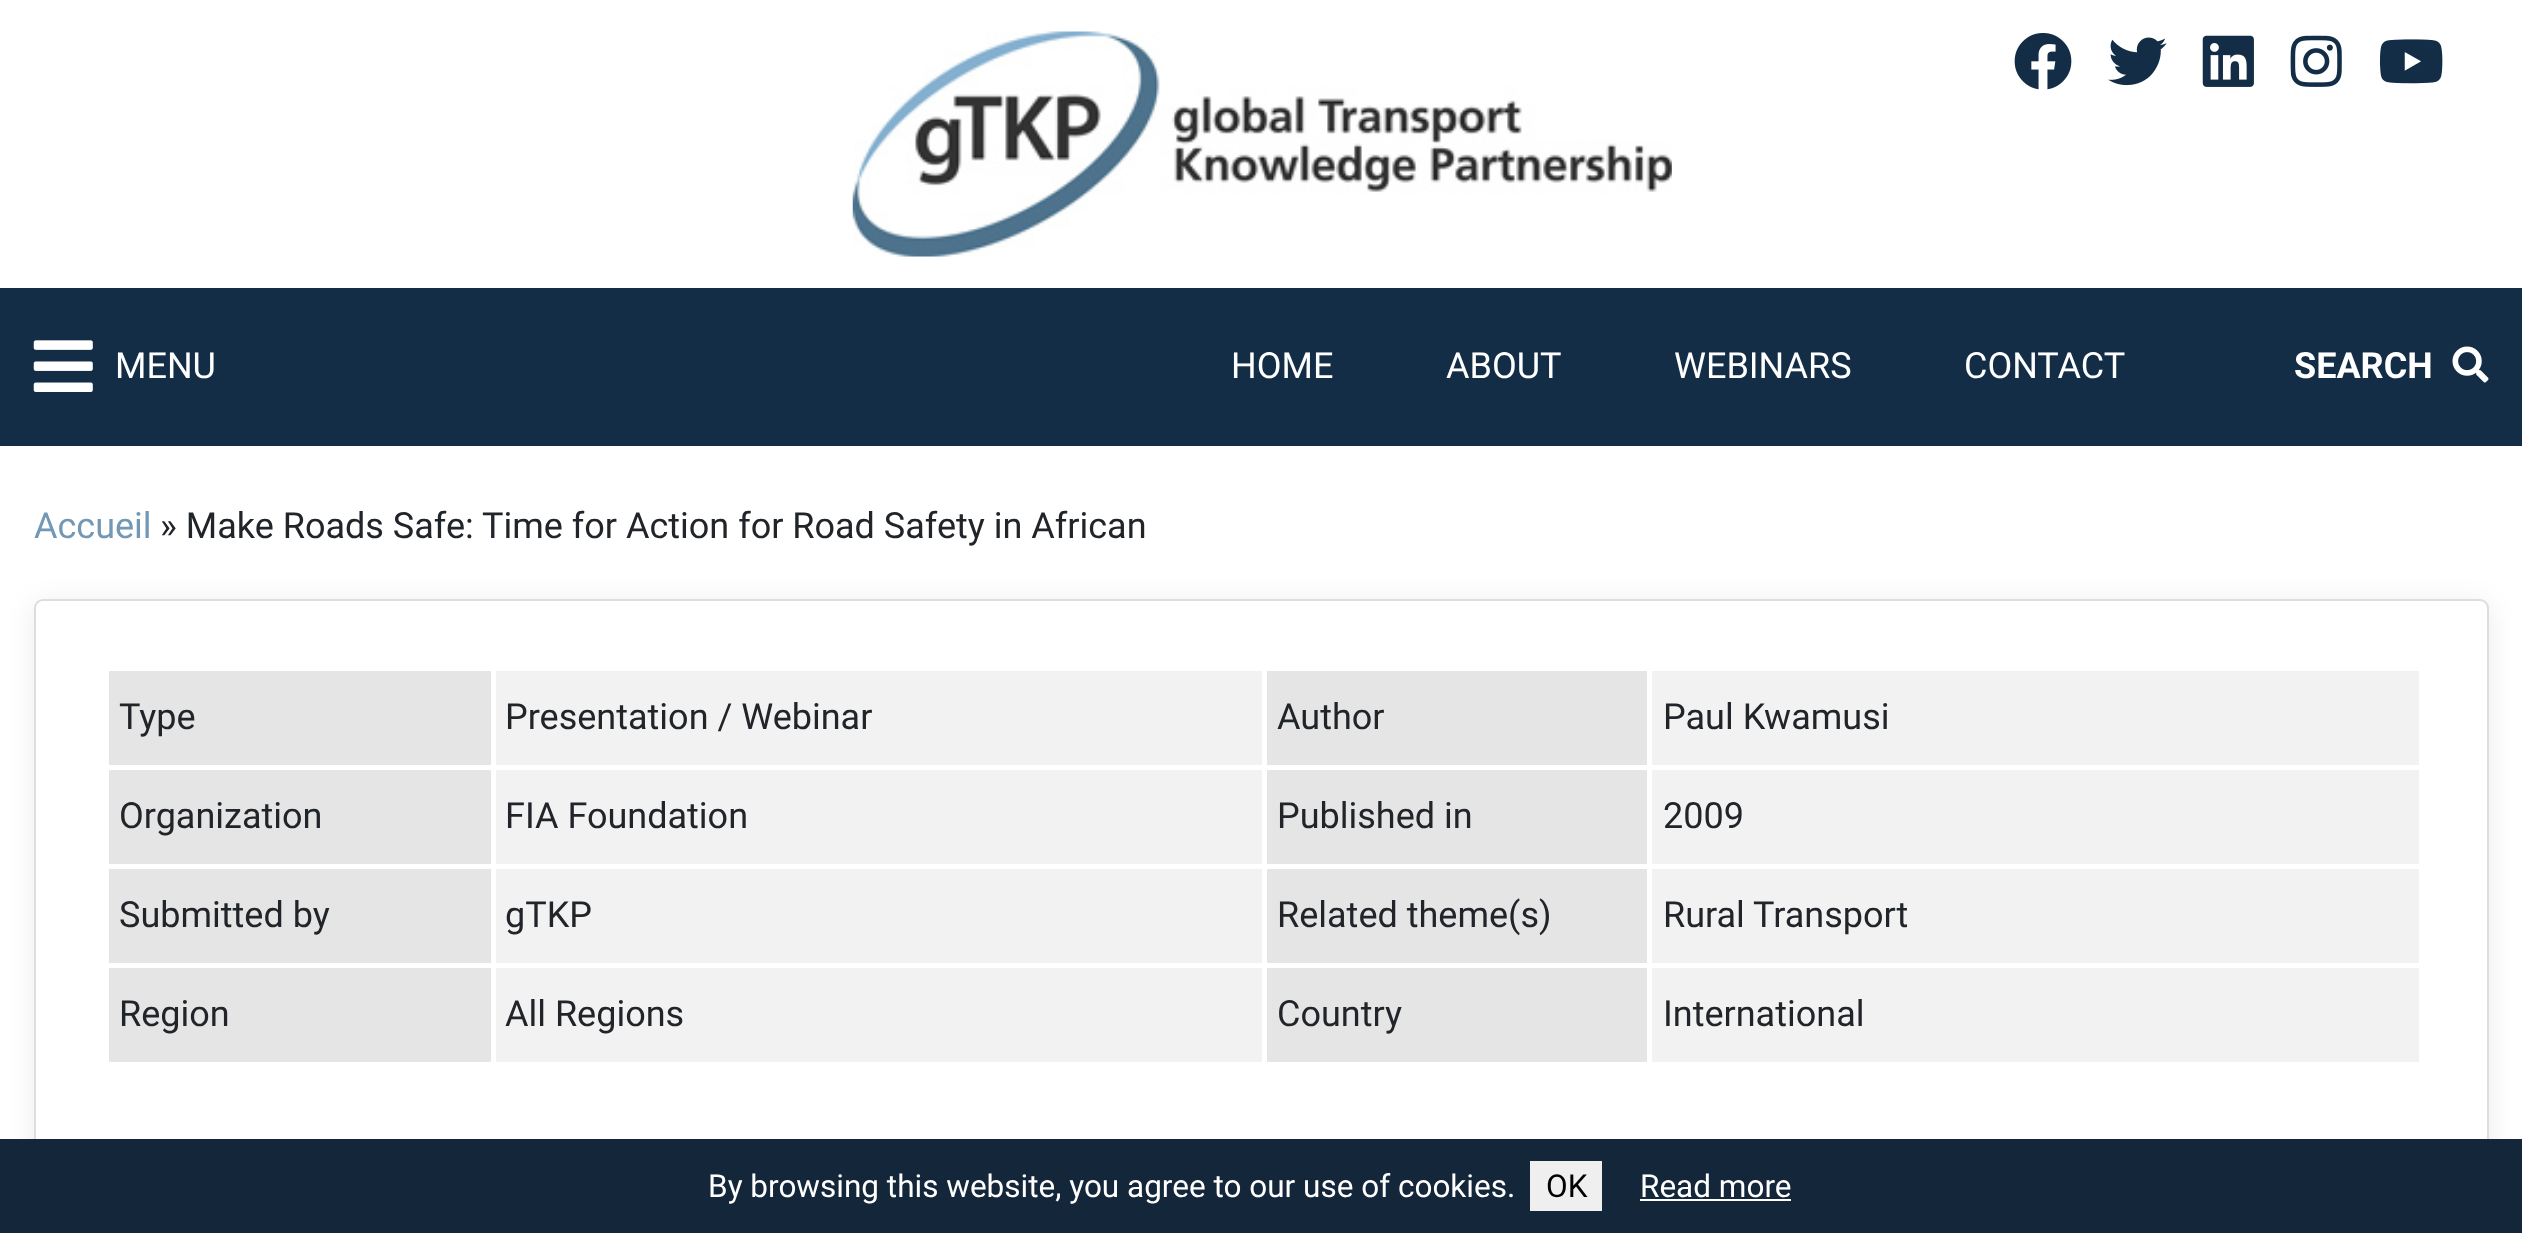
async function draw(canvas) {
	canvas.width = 2522;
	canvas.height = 1233;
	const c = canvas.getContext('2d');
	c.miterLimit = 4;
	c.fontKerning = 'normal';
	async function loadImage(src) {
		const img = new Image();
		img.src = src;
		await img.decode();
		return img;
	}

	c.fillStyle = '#fff';
	c.fillRect(0, 0, 2522, 1233);
	c.drawImage(await loadImage('img1.png'), 852, 31, 820, 226);
	c.drawImage(await loadImage('img2.png'), 2014, 33, 58, 57);
	c.drawImage(await loadImage('img3.png'), 2108, 37, 59, 49);
	c.drawImage(await loadImage('img4.png'), 2202, 35, 52, 52);
	c.drawImage(await loadImage('img5.png'), 2290, 35, 52, 52);
	c.drawImage(await loadImage('img6.png'), 2379, 39, 64, 45);
	c.fillStyle = '#132d47';
	c.fillRect(0, 288, 2522, 158);
	c.drawImage(await loadImage('img7.png'), 33, 340, 60, 52);
	c.font = '36px Roboto';
	c.fillStyle = '#fff';
	for (const [text, x, y] of [
		['MENU', 115, 378],
		['HOME', 1231, 378],
		['ABOUT', 1446, 378],
		['WEBINARS', 1674, 378],
		['CONTACT', 1964, 378],
	]) {
		c.fillText(text, x, y);
	}
	c.font = 'bold 36px Roboto';
	c.fillText('SEARCH', 2294, 378);
	c.drawImage(await loadImage('img8.png'), 2452, 346, 37, 37);
	c.font = '36px Roboto';
	c.fillStyle = '#7298b5';
	c.fillText('Accueil', 34, 538);
	c.fillStyle = '#212529';
	c.fillText('» Make Roads Safe: Time for Action for Road Safety in African', 160, 538);
	c.fillStyle = '#00000014';
	c.filter = 'blur(13.5px)';
	c.beginPath();
	c.roundRect(34, 603, 2455, 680, 9);
	c.fill();
	c.filter = 'none';
	c.fillStyle = '#fff';
	c.beginPath();
	c.roundRect(35, 600, 2453, 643, 8);
	c.fill();
	c.strokeStyle = '#ddd';
	c.lineWidth = 2;
	c.stroke();
	c.fillStyle = '#e5e5e5';
	c.fillRect(109, 671, 382, 94);
	c.fillStyle = '#212529';
	c.fillText('Type', 119, 729);
	c.fillStyle = '#f2f2f2';
	c.fillRect(496, 671, 766, 94);
	c.fillStyle = '#212529';
	c.fillText('Presentation / Webinar', 505, 729);
	c.fillStyle = '#e5e5e5';
	c.fillRect(1267, 671, 380, 94);
	c.fillStyle = '#212529';
	c.fillText('Author', 1277, 729);
	c.fillStyle = '#f2f2f2';
	c.fillRect(1652, 671, 767, 94);
	c.fillStyle = '#212529';
	c.fillText('Paul Kwamusi', 1663, 729);
	c.fillStyle = '#e5e5e5';
	c.fillRect(109, 770, 382, 94);
	c.fillStyle = '#212529';
	c.fillText('Organization', 119, 828);
	c.fillStyle = '#f2f2f2';
	c.fillRect(496, 770, 766, 94);
	c.fillStyle = '#212529';
	c.fillText('FIA Foundation', 505, 828);
	c.fillStyle = '#e5e5e5';
	c.fillRect(1267, 770, 380, 94);
	c.fillStyle = '#212529';
	c.fillText('Published in', 1277, 828);
	c.fillStyle = '#f2f2f2';
	c.fillRect(1652, 770, 767, 94);
	c.fillStyle = '#212529';
	c.fillText('2009', 1663, 828);
	c.fillStyle = '#e5e5e5';
	c.fillRect(109, 869, 382, 94);
	c.fillStyle = '#212529';
	c.fillText('Submitted by', 119, 927);
	c.fillStyle = '#f2f2f2';
	c.fillRect(496, 869, 766, 94);
	c.fillStyle = '#212529';
	c.fillText('gTKP', 505, 927);
	c.fillStyle = '#e5e5e5';
	c.fillRect(1267, 869, 380, 94);
	c.fillStyle = '#212529';
	c.fillText('Related theme(s)', 1277, 927);
	c.fillStyle = '#f2f2f2';
	c.fillRect(1652, 869, 767, 94);
	c.fillStyle = '#212529';
	c.fillText('Rural Transport', 1663, 927);
	c.fillStyle = '#e5e5e5';
	c.fillRect(109, 968, 382, 94);
	c.fillStyle = '#212529';
	c.fillText('Region', 119, 1026);
	c.fillStyle = '#f2f2f2';
	c.fillRect(496, 968, 766, 94);
	c.fillStyle = '#212529';
	c.fillText('All Regions', 505, 1026);
	c.fillStyle = '#e5e5e5';
	c.fillRect(1267, 968, 380, 94);
	c.fillStyle = '#212529';
	c.fillText('Country', 1277, 1026);
	c.fillStyle = '#f2f2f2';
	c.fillRect(1652, 968, 767, 94);
	c.fillStyle = '#212529';
	c.fillText('International', 1663, 1026);
	c.fillStyle = '#13263a';
	c.fillRect(0, 1139, 2522, 94);
	c.font = '31.5px Roboto';
	c.fillStyle = '#fff';
	c.fillText('By browsing this website, you agree to our use of cookies.', 708, 1197);
	c.fillStyle = '#efefef';
	c.fillRect(1530, 1161, 72, 50);
	c.fillStyle = '#000';
	c.fillText('OK', 1546, 1197);
	c.fillStyle = '#fff';
	c.fillText('Read more', 1640, 1197);
	c.fillRect(1640, 1199, 151, 2);
}

draw(document.querySelector('canvas'));
